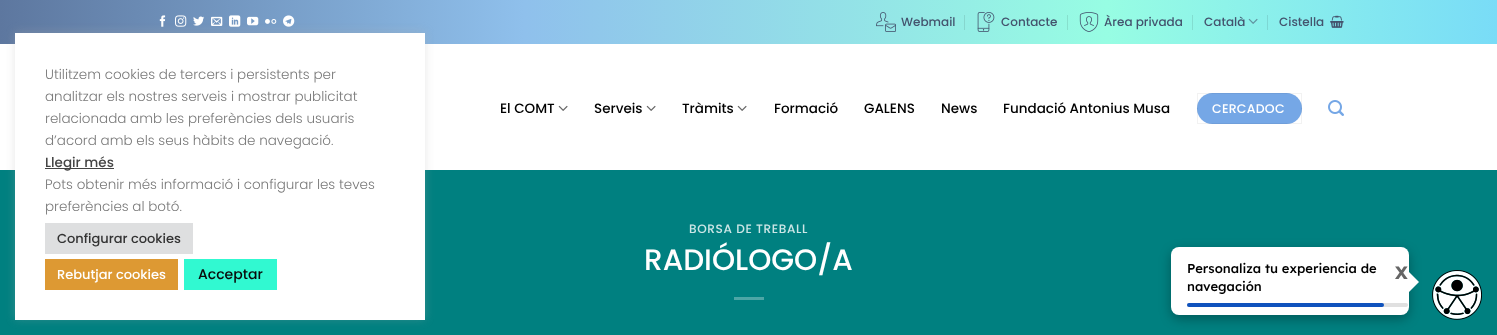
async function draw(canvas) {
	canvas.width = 1497;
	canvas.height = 335;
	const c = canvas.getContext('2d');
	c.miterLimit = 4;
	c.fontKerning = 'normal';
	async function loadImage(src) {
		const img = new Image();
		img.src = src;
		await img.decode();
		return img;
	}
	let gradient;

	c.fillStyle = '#fff';
	c.fillRect(0, 0, 1497, 335);
	gradient = c.createLinearGradient(0, 22, 1497, 22);
	gradient.addColorStop(0, '#5d779f');
	gradient.addColorStop(0.35, '#8fc0ec');
	gradient.addColorStop(0.74, '#97fde3');
	gradient.addColorStop(1, '#79dcf7');
	c.fillStyle = gradient;
	c.fillRect(0, 0, 1497, 44);
	c.drawImage(await loadImage('img1.png'), 159, 15, 7, 12);
	c.drawImage(await loadImage('img2.png'), 175, 15, 12, 12);
	c.drawImage(await loadImage('img3.png'), 193, 16, 12, 10);
	c.drawImage(await loadImage('img4.png'), 211, 16, 12, 10);
	c.drawImage(await loadImage('img5.png'), 229, 15, 12, 12);
	c.drawImage(await loadImage('img6.png'), 247, 16, 12, 10);
	c.drawImage(await loadImage('img7.png'), 265, 19, 12, 5);
	c.drawImage(await loadImage('img8.png'), 283, 15, 12, 12);
	c.fillStyle = '#008080';
	c.fillRect(0, 170, 1497, 165);
	c.fillStyle = '#acabab4d';
	c.filter = 'blur(5px)';
	c.beginPath();
	c.rect(15, 32, 410, 287);
	c.fill();
	c.filter = 'none';
	c.fillStyle = '#fff';
	c.fillRect(15, 33, 410, 287);
	c.font = '300 13.5px Poppins';
	c.fillStyle = '#7a7a7a';
	for (const [text, x, y] of [
		['Utilitzem cookies de tercers i persistents per', 45, 79],
		['analitzar els nostres serveis i mostrar publicitat', 45, 101],
		['relacionada amb les preferències dels usuaris', 45, 123],
		['d’acord amb els seus hàbits de navegació.', 45, 145],
	]) {
		c.fillText(text, x, y);
	}
	c.fillStyle = '#444';
	c.fillRect(45, 168, 69, 1);
	c.font = '500 13.5px Poppins';
	c.fillText('Llegir més', 45, 167);
	c.font = '300 13.5px Poppins';
	c.fillStyle = '#7a7a7a';
	c.fillText('Pots obtenir més informació i configurar les teves', 45, 189);
	c.fillText('preferències al botó.', 45, 211);
	c.fillStyle = '#dedfe0';
	c.fillRect(45, 223, 148, 31);
	c.font = '500 13px Poppins';
	c.fillStyle = '#333';
	c.fillText('Configurar cookies', 57, 243);
	c.fillStyle = '#d93';
	c.fillRect(45, 259, 133, 31);
	c.fillStyle = '#fff';
	c.fillText('Rebutjar cookies', 57, 279);
	c.fillStyle = '#31f9d1';
	c.fillRect(184, 259, 93, 31);
	c.font = '500 14px Poppins';
	c.fillStyle = '#0a0a0a';
	c.fillText('Acceptar', 198, 279);
	c.drawImage(await loadImage('img9.png'), 876, 12, 20, 20);
	c.font = '500 12px Poppins';
	c.fillStyle = '#44546e';
	c.fillText('Webmail', 901, 26);
	c.fillStyle = '#86d6ce';
	c.fillRect(964, 15, 1, 15);
	c.drawImage(await loadImage('img10.png'), 977, 12, 18, 20);
	c.fillStyle = '#44546e';
	c.fillText('Contacte', 1001, 26);
	c.fillStyle = '#87e0cd';
	c.fillRect(1067, 15, 1, 15);
	c.drawImage(await loadImage('img11.png'), 1079, 12, 20, 20);
	c.fillStyle = '#44546e';
	c.fillText('Àrea privada', 1104, 26);
	c.fillStyle = '#82ddd0';
	c.fillRect(1192, 15, 1, 15);
	c.fillStyle = '#44546e';
	c.fillText('Català', 1204, 26);
	c.drawImage(await loadImage('img12.png'), 1248, 18, 10, 6);
	c.fillStyle = '#7dd7d4';
	c.fillRect(1267, 15, 1, 15);
	c.fillStyle = '#44546e';
	c.fillText('Cistella', 1279, 26);
	c.drawImage(await loadImage('img13.png'), 1330, 15, 14, 13);
	c.font = '500 13.5px Poppins';
	c.fillStyle = '#000';
	c.fillText('El COMT', 500, 113);
	c.drawImage(await loadImage('img14.png'), 558, 105, 10, 6);
	c.fillText('Serveis', 594, 113);
	c.drawImage(await loadImage('img14.png'), 646, 105, 10, 6);
	c.fillText('Tràmits', 682, 113);
	c.drawImage(await loadImage('img14.png'), 737, 105, 10, 6);
	for (const [text, x, y] of [
		['Formació', 774, 113],
		['GALENS', 864, 113],
		['News', 941, 113],
		['Fundació Antonius Musa', 1003, 113],
	]) {
		c.fillText(text, x, y);
	}
	c.fillStyle = '#75a7e6';
	c.beginPath();
	c.roundRect(1197, 93, 105, 31, 15.5);
	c.fill();
	c.strokeStyle = '#0000000d';
	c.strokeRect(1197.5, 93.5, 104, 30);
	c.letterSpacing = '0.25px';
	c.font = '500 12.5px Poppins';
	c.fillStyle = '#fff';
	c.fillText('CERCADOC', 1212, 113);
	c.drawImage(await loadImage('img15.png'), 1328, 100, 16, 16);
	c.letterSpacing = '0.6px';
	c.font = '500 12.1px Poppins';
	c.fillStyle = '#cce6e6';
	c.fillText('BORSA DE TREBALL', 689, 233);
	c.letterSpacing = '0px';
	c.font = '500 29.5px Poppins';
	c.fillStyle = '#fff';
	c.fillText('RADIÓLOGO/A', 644, 270);
	c.fillStyle = '#4da6a6';
	c.fillRect(734, 297, 30, 3);
	c.fillStyle = '#0000004d';
	c.filter = 'blur(6px)';
	c.beginPath();
	c.roundRect(1171, 251, 238, 68, 8);
	c.fill();
	c.filter = 'none';
	c.fillStyle = '#fff';
	c.beginPath();
	c.roundRect(1171, 247, 238, 68, 8);
	c.fill();
	c.font = '500 13px Lexend';
	c.fillStyle = '#000';
	c.fillText('Personaliza tu experiencia de', 1187, 273);
	c.font = 'bold 18px Lexend';
	c.fillStyle = '#666';
	c.fillText('X', 1395, 279);
	c.fillStyle = '#fff';
	c.beginPath();
	c.moveTo(1409, 292);
	c.lineTo(1409, 272);
	c.lineTo(1419, 282);
	c.closePath();
	c.fill();
	c.font = '500 13px Lexend';
	c.fillStyle = '#000';
	c.fillText('navegación', 1187, 291);
	c.fillStyle = '#e0e0e0';
	c.beginPath();
	c.roundRect(1187, 303, 221, 4, 2);
	c.fill();
	c.fillStyle = '#0f52bd';
	c.beginPath();
	c.roundRect(1187, 303, 197, 4, 2);
	c.fill();
	c.drawImage(await loadImage('img16.png'), 1432, 270, 50, 50);
}

draw(document.querySelector('canvas'));
